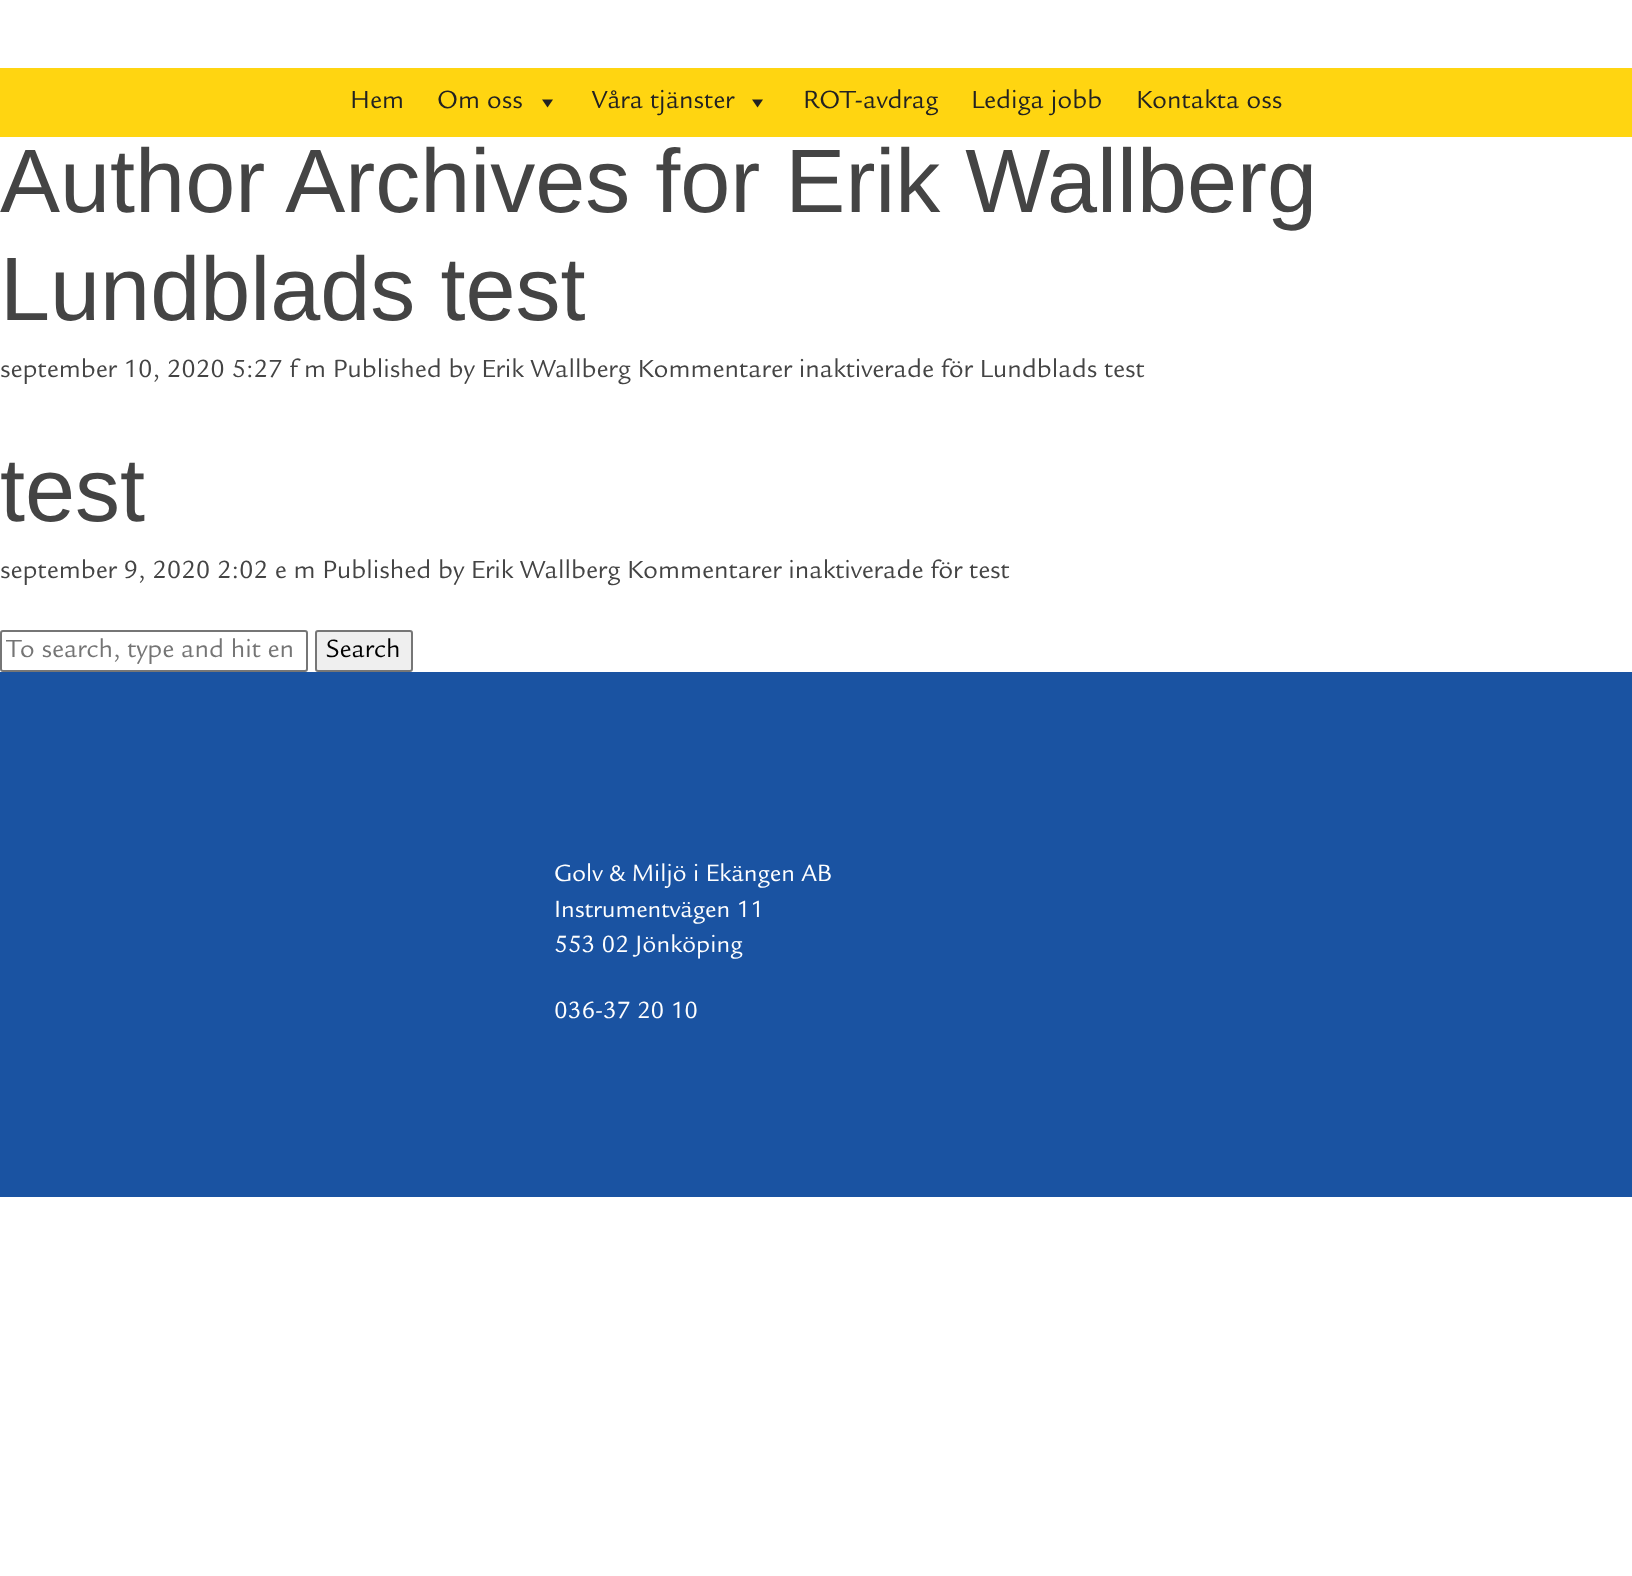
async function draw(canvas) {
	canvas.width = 1632;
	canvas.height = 1576;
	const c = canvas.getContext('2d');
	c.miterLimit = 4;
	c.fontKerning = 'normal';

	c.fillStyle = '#fff';
	c.fillRect(0, 0, 1632, 1576);
	c.fillStyle = '#ffd511';
	c.fillRect(0, 68, 1632, 69);
	c.font = '27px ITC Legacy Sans';
	c.fillStyle = '#222';
	c.fillText('Hem', 350, 108);
	c.fillText('Om oss', 437, 108);
	c.beginPath();
	c.moveTo(553, 99.5);
	c.lineTo(547.5, 107.5);
	c.lineTo(542, 99.5);
	c.closePath();
	c.fill();
	c.fillText('Våra tjänster', 592, 108);
	c.beginPath();
	c.moveTo(763, 99.5);
	c.lineTo(757.5, 107.5);
	c.lineTo(752, 99.5);
	c.closePath();
	c.fill();
	for (const [text, x, y] of [
		['ROT-avdrag', 803, 108],
		['Lediga jobb', 971, 108],
		['Kontakta oss', 1136, 108],
	]) {
		c.fillText(text, x, y);
	}
	c.font = '90px Liberation Sans';
	c.fillStyle = '#444';
	c.fillText('Author Archives for Erik Wallberg', 0, 212);
	c.fillText('Lundblads test', 0, 320);
	c.font = '27px ITC Legacy Sans';
	c.fillText('september 10, 2020 5:27 f m Published by Erik Wallberg Kommentarer inaktiverade för Lundblads test', 0, 377);
	c.font = '90px Liberation Sans';
	c.fillText('test', 0, 521);
	c.font = '27px ITC Legacy Sans';
	c.fillText('september 9, 2020 2:02 e m Published by Erik Wallberg Kommentarer inaktiverade för test', 0, 578);
	c.beginPath();
	c.roundRect(1, 631, 306, 40, 2);
	c.strokeStyle = '#767676';
	c.lineWidth = 2;
	c.stroke();
	c.save();
	c.beginPath();
	c.rect(6, 635, 290, 33);
	c.clip();
	c.fillStyle = '#757575';
	c.fillText('To search, type and hit en', 6, 657);
	c.restore();
	c.fillStyle = '#efefef';
	c.beginPath();
	c.roundRect(316, 631, 96, 40, 2);
	c.fill();
	c.stroke();
	c.fillStyle = '#000';
	c.fillText('Search', 326, 657);
	c.fillStyle = '#1a53a2';
	c.fillRect(0, 672, 1632, 525);
	c.font = '25.5px ITC Legacy Sans';
	c.fillStyle = '#fff';
	for (const [text, x, y] of [
		['Golv & Miljö i Ekängen AB', 554, 881],
		['Instrumentvägen 11', 554, 917],
		['553 02 Jönköping', 554, 952],
		['036-37 20 10', 554, 1018],
	]) {
		c.fillText(text, x, y);
	}
}

draw(document.querySelector('canvas'));
